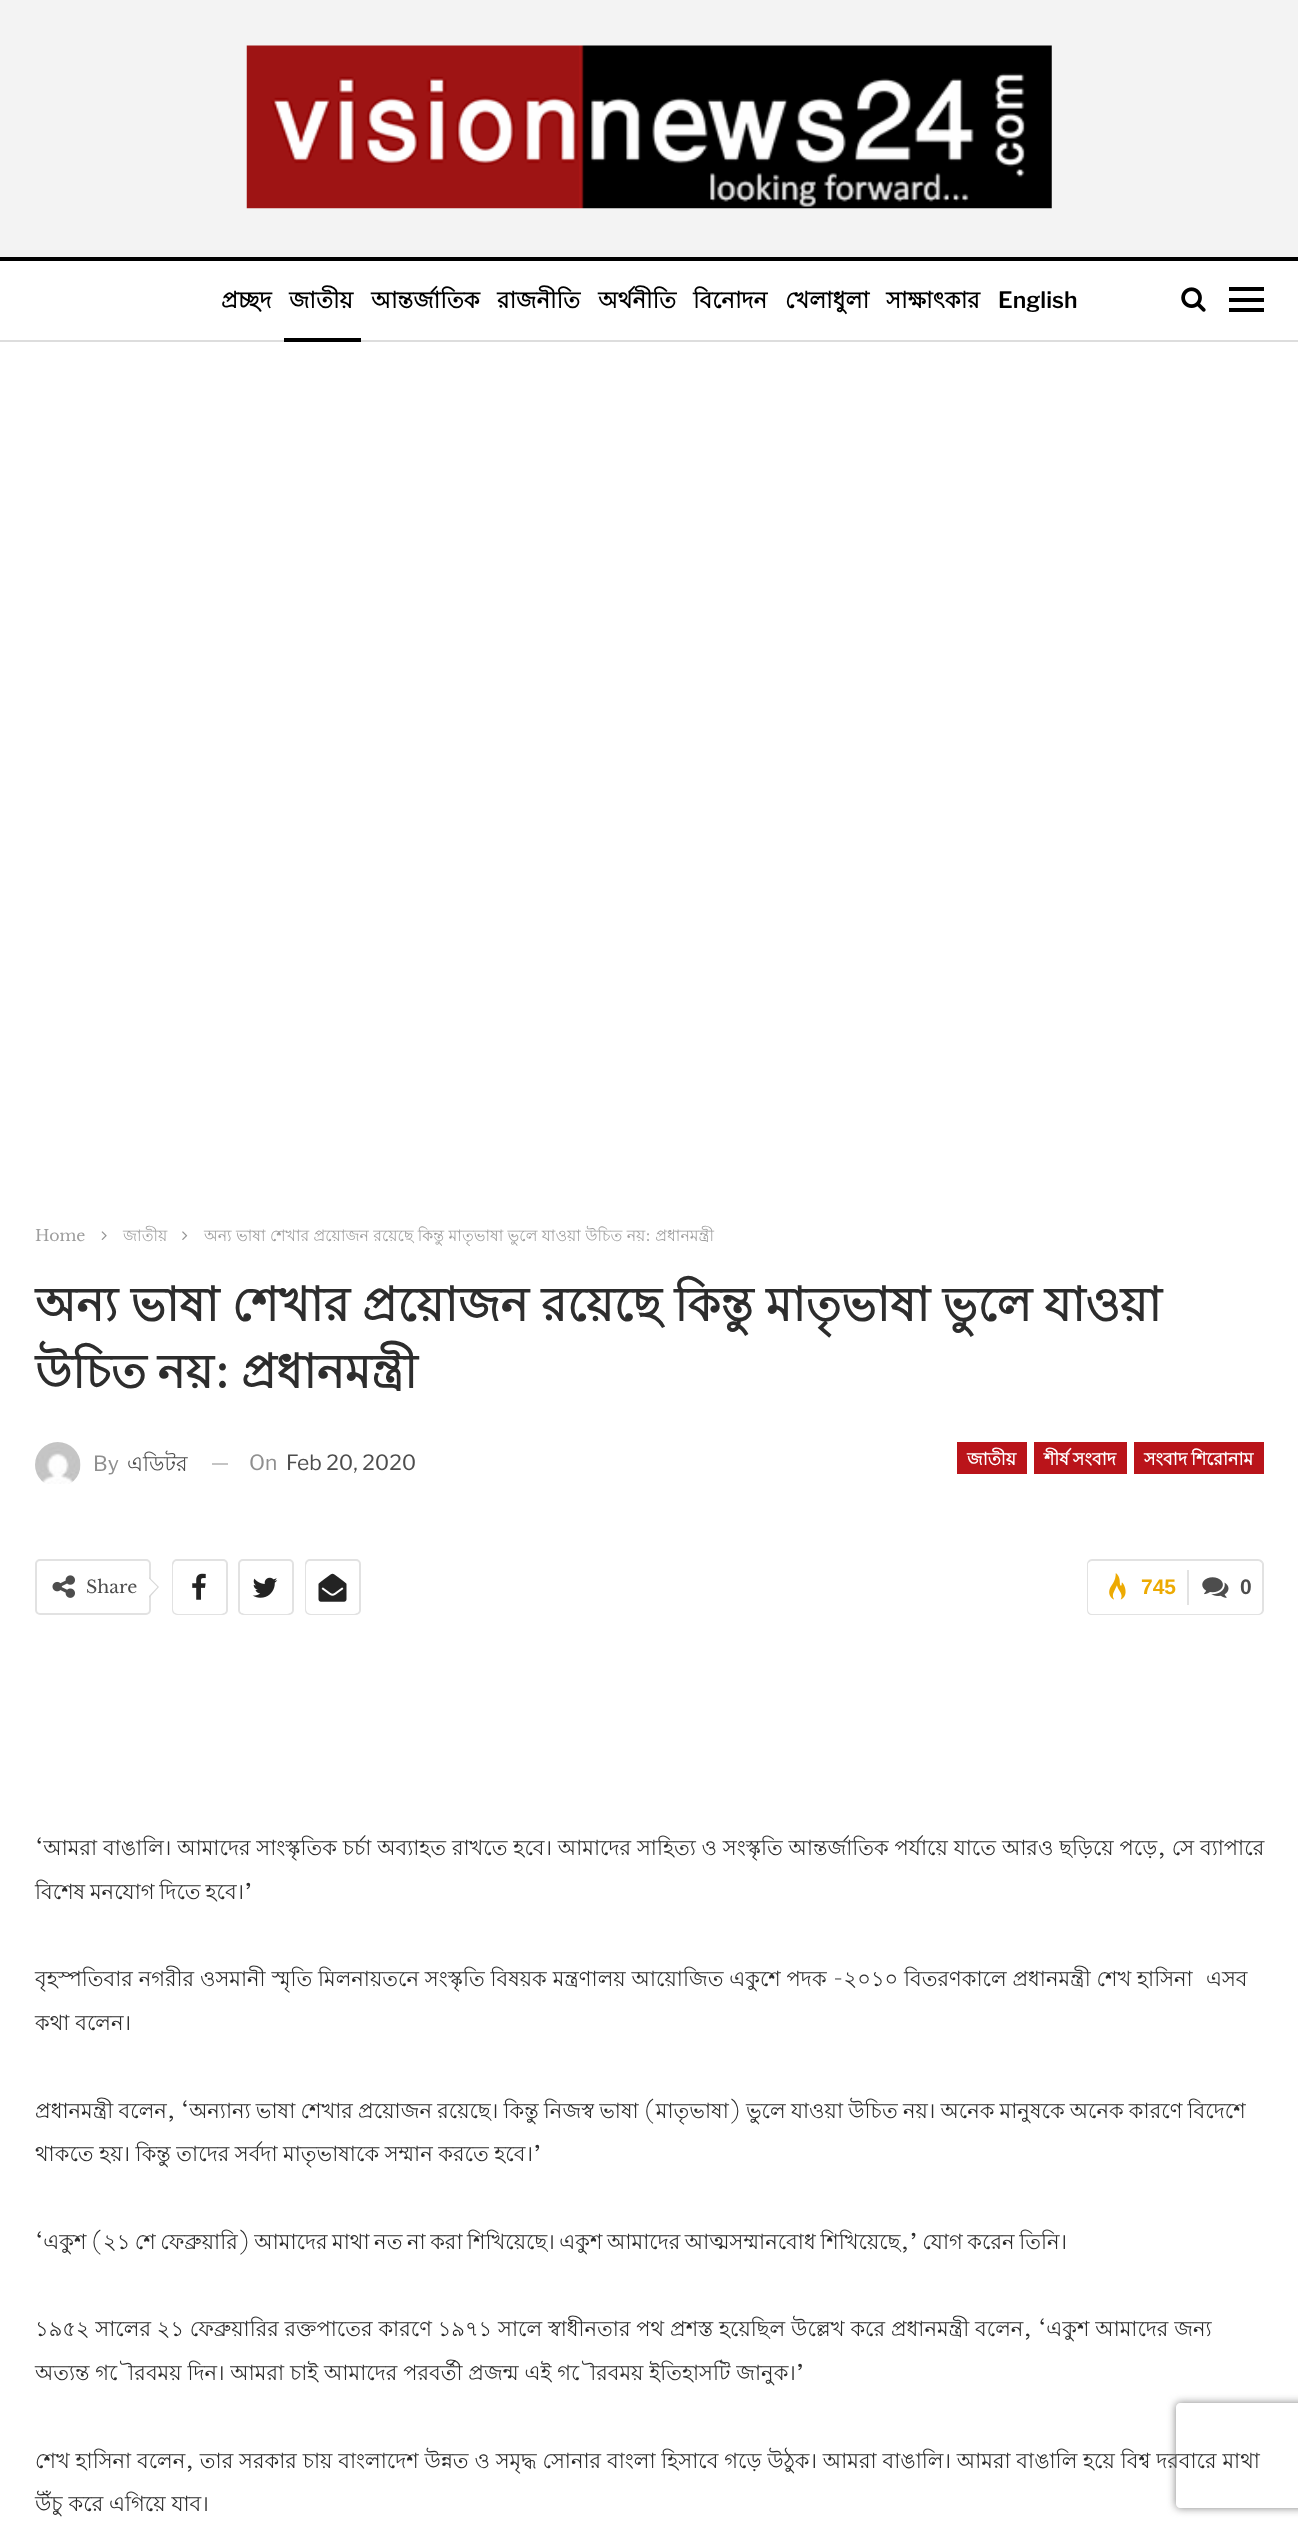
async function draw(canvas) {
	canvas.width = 1298;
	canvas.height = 2531;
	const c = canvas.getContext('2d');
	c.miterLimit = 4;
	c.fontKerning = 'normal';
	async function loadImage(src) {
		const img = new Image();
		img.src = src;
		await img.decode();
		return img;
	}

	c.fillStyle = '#f3f3f3';
	c.fillRect(0, 0, 1298, 2531);
	c.drawImage(await loadImage('img1.png'), 246, 45, 806, 164);
	for (const [x, y, w, h, color] of [
		[0, 261, 1298, 79, '#fff'],
		[0, 257, 1298, 4, '#000'],
		[0, 340, 1298, 2, '#ddd'],
	]) {
		c.fillStyle = color;
		c.fillRect(x, y, w, h);
	}
	c.font = 'bold 22.75px Lohit Bengali';
	c.fillStyle = '#000';
	c.fillText('প্রচ্ছদ', 221, 308);
	c.fillText('জাতীয়', 289, 308);
	c.fillRect(284, 338, 77, 4);
	for (const [text, x, y] of [
		['আন্তর্জাতিক', 371, 308],
		['রাজনীতি', 497, 308],
		['অর্থনীতি', 598, 308],
		['বিনোদন', 693, 308],
		['খেলাধুলা', 785, 308],
		['সাক্ষাৎকার', 886, 308],
	]) {
		c.fillText(text, x, y);
	}
	c.font = '600 22.75px Libre Franklin';
	c.fillText('English', 998, 308);
	c.drawImage(await loadImage('img2.png'), 1181, 287, 25, 25);
	for (const [x, y, w, h, color] of [
		[1229, 298, 35, 4, '#000'],
		[1229, 287, 35, 4, '#000'],
		[1229, 308, 35, 4, '#000'],
		[0, 342, 1298, 2189, '#fff'],
	]) {
		c.fillStyle = color;
		c.fillRect(x, y, w, h);
	}
	c.font = '15.75px Libre Baskerville';
	c.fillStyle = '#9e9e9e';
	c.fillText('Home', 35, 1241);
	c.drawImage(await loadImage('img3.png'), 101, 1231, 6, 9);
	c.font = '15.75px Lohit Bengali';
	c.fillText('জাতীয়', 123, 1241);
	c.drawImage(await loadImage('img4.png'), 182, 1231, 6, 9);
	c.fillText('অন্য ভাষা শেখার প্রয়োজন রয়েছে কিন্তু মাতৃভাষা ভুলে যাওয়া উচিত নয়: প্রধানমন্ত্রী', 204, 1241);
	c.wordSpacing = '-0.5px';
	c.font = 'bold 47.25px Lohit Bengali';
	c.fillStyle = '#2d2d2d';
	c.fillText('অন্য ভাষা শেখার প্রয়োজন রয়েছে কিন্তু মাতৃভাষা ভুলে যাওয়া', 35, 1321);
	c.wordSpacing = '-2px';
	c.fillText('উচিত নয়: প্রধানমন্ত্রী', 35, 1388);
	c.drawImage(await loadImage('img5.png'), 35, 1442, 46, 42);
	c.wordSpacing = '0px';
	c.font = '21px Libre Franklin';
	c.fillStyle = '#8f8f8f';
	c.fillText('By', 93, 1471);
	c.font = '21px Lohit Bengali';
	c.fillStyle = '#4d4d4d';
	c.fillText('এডিটর', 127, 1471);
	c.fillStyle = '#c4c4c4';
	c.fillRect(212, 1463, 16, 2);
	c.font = '21px Libre Franklin';
	c.fillStyle = '#8f8f8f';
	c.fillText('On', 249, 1470);
	c.fillStyle = '#4d4d4d';
	c.fillText('Feb 20, 2020', 286, 1470);
	c.fillStyle = '#ba141a';
	c.fillRect(957, 1442, 70, 32);
	c.font = 'bold 17.5px Lohit Bengali';
	c.fillStyle = '#fff';
	c.fillText('জাতীয়', 967, 1465);
	c.fillStyle = '#ba141a';
	c.fillRect(1034, 1442, 93, 32);
	c.wordSpacing = '-1px';
	c.fillStyle = '#fff';
	c.fillText('শীর্ষ সংবাদ', 1044, 1465);
	c.fillStyle = '#ba141a';
	c.fillRect(1134, 1442, 130, 32);
	c.fillStyle = '#fff';
	c.fillText('সংবাদ শিরোনাম', 1144, 1465);
	c.beginPath();
	c.roundRect(36, 1560, 114, 54, 4);
	c.strokeStyle = '#e2e2e2';
	c.lineWidth = 2;
	c.stroke();
	c.drawImage(await loadImage('img6.png'), 52, 1575, 23, 23);
	c.wordSpacing = '0px';
	c.font = '17.5px Libre Baskerville';
	c.fillStyle = '#4d4d4d';
	c.fillText('Share', 86, 1593);
	c.fillStyle = '#d7d7d7';
	c.beginPath();
	c.moveTo(149, 1598);
	c.lineTo(149, 1577);
	c.lineTo(159, 1587);
	c.closePath();
	c.fill();
	c.fillStyle = '#fff';
	c.beginPath();
	c.moveTo(149, 1596);
	c.lineTo(149, 1578.5);
	c.lineTo(157.5, 1587);
	c.closePath();
	c.fill();
	c.beginPath();
	c.roundRect(173, 1560, 54, 54, 4);
	c.stroke();
	c.beginPath();
	c.roundRect(173, 1561, 53, 53, 5);
	c.fill();
	c.drawImage(await loadImage('img7.png'), 192, 1573, 14, 27);
	c.beginPath();
	c.roundRect(239, 1560, 54, 54, 4);
	c.stroke();
	c.beginPath();
	c.roundRect(240, 1561, 52, 53, 5);
	c.fill();
	c.drawImage(await loadImage('img8.png'), 252, 1577, 26, 21);
	c.beginPath();
	c.roundRect(306, 1560, 54, 54, 4);
	c.stroke();
	c.beginPath();
	c.roundRect(306, 1561, 53, 53, 5);
	c.fill();
	c.drawImage(await loadImage('img9.png'), 318, 1573, 29, 29);
	c.fillStyle = '#e2e2e2';
	c.beginPath();
	c.moveTo(1092, 1559);
	c.lineTo(1186, 1559);
	c.lineTo(1186, 1615);
	c.lineTo(1092, 1615);
	c.bezierCurveTo(1089, 1615, 1087, 1613, 1087, 1610);
	c.lineTo(1087, 1564);
	c.bezierCurveTo(1087, 1562, 1089, 1559, 1092, 1559);
	c.closePath();
	c.moveTo(1092, 1561);
	c.lineTo(1186, 1561);
	c.lineTo(1186, 1614);
	c.lineTo(1092, 1614);
	c.bezierCurveTo(1090, 1614, 1088, 1612, 1088, 1610);
	c.lineTo(1088, 1564);
	c.bezierCurveTo(1088, 1563, 1090, 1561, 1092, 1561);
	c.closePath();
	c.fill('evenodd');
	c.drawImage(await loadImage('img10.png'), 1109, 1573, 17, 27);
	c.font = 'bold 21px Liberation Sans';
	c.fillStyle = '#edaa02';
	c.fillText('745', 1141, 1594);
	c.fillStyle = '#e2e2e2';
	c.beginPath();
	c.moveTo(1186, 1559);
	c.lineTo(1258, 1559);
	c.bezierCurveTo(1261, 1559, 1264, 1562, 1264, 1564);
	c.lineTo(1264, 1610);
	c.bezierCurveTo(1264, 1613, 1261, 1615, 1258, 1615);
	c.lineTo(1186, 1615);
	c.closePath();
	c.moveTo(1186, 1561);
	c.lineTo(1258, 1561);
	c.bezierCurveTo(1260, 1561, 1262, 1563, 1262, 1564);
	c.lineTo(1262, 1610);
	c.bezierCurveTo(1262, 1612, 1260, 1614, 1258, 1614);
	c.lineTo(1186, 1614);
	c.closePath();
	c.fill('evenodd');
	c.fillRect(1187, 1570, 2, 35);
	c.drawImage(await loadImage('img11.png'), 1202, 1577, 27, 21);
	c.fillStyle = '#4d4d4d';
	c.fillText('0', 1240, 1594);
	c.font = '21px Lohit Bengali';
	c.fillStyle = '#2d2d2d';
	c.fillText('‘আমরা বাঙালি। আমাদের সাংস্কৃতিক চর্চা অব্যাহত রাখতে হবে। আমাদের সাহিত্য ও সংস্কৃতি আন্তর্জাতিক পর্যায়ে যাতে আরও ছড়িয়ে পড়ে, সে ব্যাপারে', 35, 1855);
	c.wordSpacing = '-1px';
	c.fillText('বিশেষ মনযোগ দিতে হবে।’', 35, 1899);
	c.wordSpacing = '0px';
	for (const [text, x, y] of [
		['বৃহস্পতিবার নগরীর ওসমানী স্মৃতি মিলনায়তনে সংস্কৃতি বিষয়ক মন্ত্রণালয় আয়োজিত একুশে পদক -২০১০ বিতরণকালে প্রধানমন্ত্রী শেখ হাসিনা', 35, 1986],
		['এসব', 1206, 1986],
		['কথা বলেন।', 35, 2030],
	]) {
		c.fillText(text, x, y);
	}
	c.wordSpacing = '-0.6px';
	c.fillText('প্রধানমন্ত্রী বলেন, ‘অন্যান্য ভাষা শেখার প্রয়োজন রয়েছে। কিন্তু নিজস্ব ভাষা (মাতৃভাষা) ভুলে যাওয়া উচিত নয়। অনেক মানুষকে অনেক কারণে বিদেশে', 35, 2118);
	c.wordSpacing = '-0.25px';
	c.fillText('থাকতে হয়। কিন্তু তাদের সর্বদা মাতৃভাষাকে সম্মান করতে হবে।’', 35, 2161);
	c.wordSpacing = '-1.25px';
	c.fillText('‘একুশ (২১ শে ফেব্রুয়ারি) আমাদের মাথা নত না করা শিখিয়েছে। একুশ আমাদের আত্মসম্মানবোধ শিখিয়েছে,’ যোগ করেন তিনি।', 35, 2249);
	c.wordSpacing = '0px';
	for (const [text, x, y] of [
		['১৯৫২ সালের ২১ ফেব্রুয়ারির রক্তপাতের কারণে ১৯৭১ সালে স্বাধীনতার পথ প্রশস্ত হয়েছিল উল্লেখ করে প্রধানমন্ত্রী বলেন, ‘একুশ আমাদের জন্য', 35, 2336],
		['অত্যন্ত গৌরবময় দিন। আমরা চাই আমাদের পরবর্তী প্রজন্ম এই গৌরবময় ইতিহাসটি জানুক।’', 35, 2380],
		['শেখ হাসিনা বলেন, তার সরকার চায় বাংলাদেশ উন্নত ও সমৃদ্ধ সোনার বাংলা হিসাবে গড়ে উঠুক। আমরা বাঙালি। আমরা বাঙালি হয়ে বিশ্ব দরবারে মাথা', 35, 2468],
		['উঁচু করে এগিয়ে যাব।', 35, 2511],
	]) {
		c.fillText(text, x, y);
	}
	c.save();
	c.beginPath();
	c.moveTo(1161, 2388);
	c.lineTo(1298, 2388);
	c.lineTo(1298, 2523);
	c.lineTo(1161, 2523);
	c.closePath();
	c.moveTo(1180, 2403);
	c.lineTo(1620, 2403);
	c.bezierCurveTo(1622, 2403, 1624, 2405, 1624, 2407);
	c.lineTo(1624, 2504);
	c.bezierCurveTo(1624, 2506, 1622, 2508, 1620, 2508);
	c.lineTo(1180, 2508);
	c.bezierCurveTo(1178, 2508, 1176, 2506, 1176, 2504);
	c.lineTo(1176, 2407);
	c.bezierCurveTo(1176, 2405, 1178, 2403, 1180, 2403);
	c.closePath();
	c.clip('evenodd');
	c.fillStyle = '#808080';
	c.filter = 'blur(4.5px)';
	c.beginPath();
	c.roundRect(1176, 2403, 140, 105, 4);
	c.fill();
	c.filter = 'none';
	c.restore();
}

draw(document.querySelector('canvas'));
